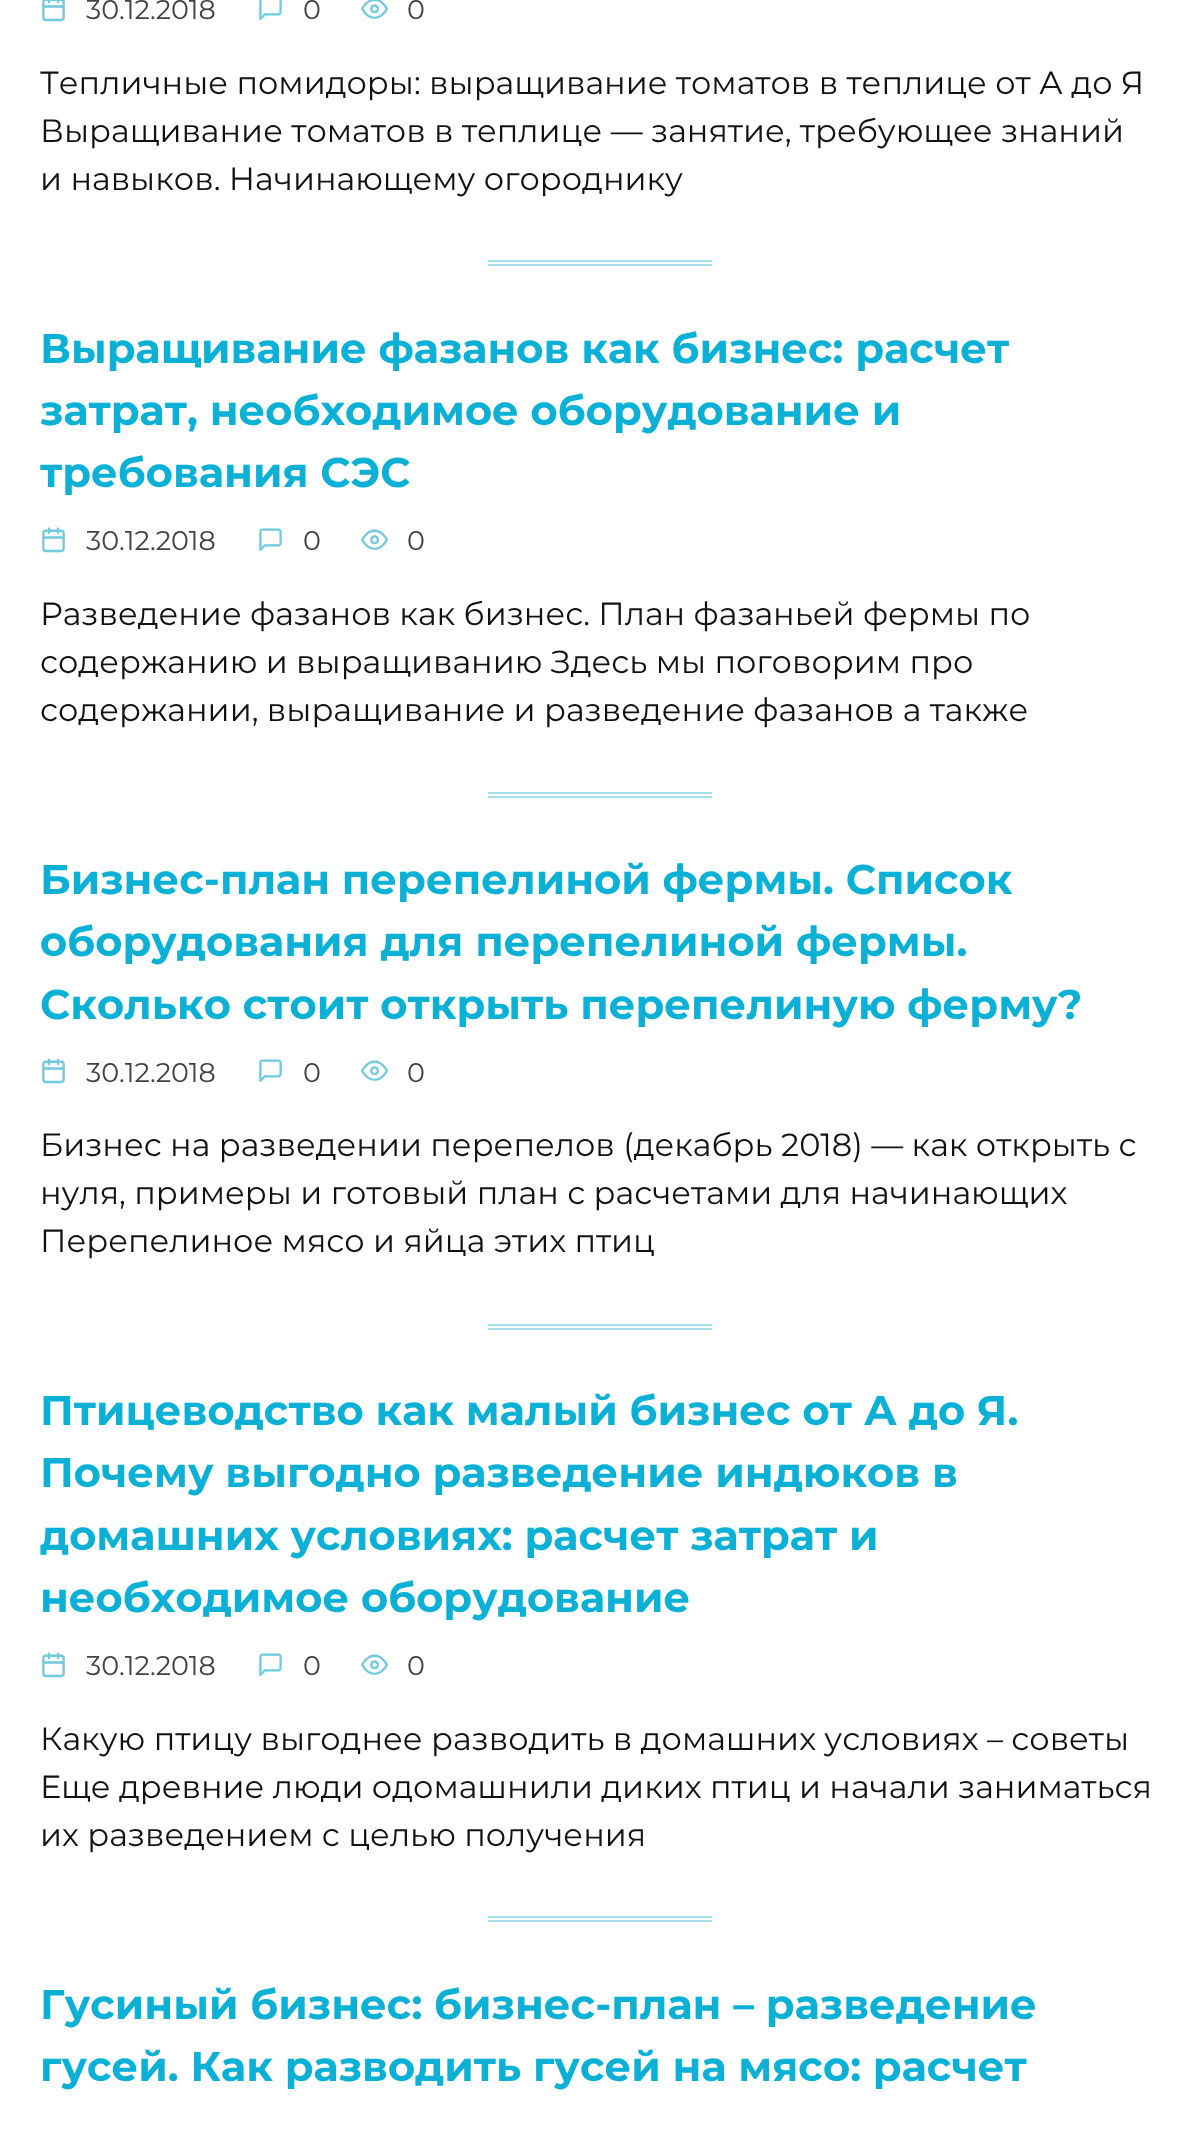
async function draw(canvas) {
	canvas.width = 1200;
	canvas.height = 2132;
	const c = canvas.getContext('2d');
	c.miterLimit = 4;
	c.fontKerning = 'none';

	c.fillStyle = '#fff';
	c.fillRect(0, 0, 1200, 2132);
	c.font = '27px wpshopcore';
	c.fillStyle = '#72cade';
	c.fillText('📅', 40, 20);
	c.font = '27px Montserrat';
	c.fillStyle = '#414141';
	c.fillText('30.12.2018', 86, 19);
	c.font = '27px wpshopcore';
	c.fillStyle = '#72cade';
	c.fillText('💬', 257, 20);
	c.font = '27px Montserrat';
	c.fillStyle = '#414141';
	c.fillText('0', 303, 19);
	c.font = '27px wpshopcore';
	c.fillStyle = '#72cade';
	c.fillText('👀', 361, 20);
	c.font = '27px Montserrat';
	c.fillStyle = '#414141';
	c.fillText('0', 407, 19);
	c.font = '32px Montserrat';
	c.fillStyle = '#111';
	for (const [text, x, y] of [
		['Тепличные помидоры: выращивание томатов в теплице от А до Я', 40, 94],
		['Выращивание томатов в теплице — занятие, требующее знаний', 40, 142],
		['и навыков. Начинающему огороднику', 40, 190],
	]) {
		c.fillText(text, x, y);
	}
	c.fillStyle = '#a7deeb';
	c.fillRect(488, 260, 224, 2);
	c.fillRect(488, 264, 224, 2);
	c.font = 'bold 41.6px Montserrat';
	c.fillStyle = '#0ab0d6';
	for (const [text, x, y] of [
		['Выращивание фазанов как бизнес: расчет', 40, 363],
		['затрат, необходимое оборудование и', 40, 425],
		['требования СЭС', 40, 487],
	]) {
		c.fillText(text, x, y);
	}
	c.font = '27px wpshopcore';
	c.fillStyle = '#72cade';
	c.fillText('📅', 40, 551);
	c.font = '27px Montserrat';
	c.fillStyle = '#414141';
	c.fillText('30.12.2018', 86, 550);
	c.font = '27px wpshopcore';
	c.fillStyle = '#72cade';
	c.fillText('💬', 257, 551);
	c.font = '27px Montserrat';
	c.fillStyle = '#414141';
	c.fillText('0', 303, 550);
	c.font = '27px wpshopcore';
	c.fillStyle = '#72cade';
	c.fillText('👀', 361, 551);
	c.font = '27px Montserrat';
	c.fillStyle = '#414141';
	c.fillText('0', 407, 550);
	c.font = '32px Montserrat';
	c.fillStyle = '#111';
	for (const [text, x, y] of [
		['Разведение фазанов как бизнес. План фазаньей фермы по', 40, 625],
		['содержанию и выращиванию Здесь мы поговорим про', 40, 673],
		['содержании, выращивание и разведение фазанов а также', 40, 721],
	]) {
		c.fillText(text, x, y);
	}
	c.fillStyle = '#a7deeb';
	c.fillRect(488, 792, 224, 2);
	c.fillRect(488, 796, 224, 2);
	c.font = 'bold 41.6px Montserrat';
	c.fillStyle = '#0ab0d6';
	for (const [text, x, y] of [
		['Бизнес-план перепелиной фермы. Список', 40, 894],
		['оборудования для перепелиной фермы.', 40, 956],
		['Сколько стоит открыть перепелиную ферму?', 40, 1019],
	]) {
		c.fillText(text, x, y);
	}
	c.font = '27px wpshopcore';
	c.fillStyle = '#72cade';
	c.fillText('📅', 40, 1082);
	c.font = '27px Montserrat';
	c.fillStyle = '#414141';
	c.fillText('30.12.2018', 86, 1082);
	c.font = '27px wpshopcore';
	c.fillStyle = '#72cade';
	c.fillText('💬', 257, 1082);
	c.font = '27px Montserrat';
	c.fillStyle = '#414141';
	c.fillText('0', 303, 1082);
	c.font = '27px wpshopcore';
	c.fillStyle = '#72cade';
	c.fillText('👀', 361, 1082);
	c.font = '27px Montserrat';
	c.fillStyle = '#414141';
	c.fillText('0', 407, 1082);
	c.font = '32px Montserrat';
	c.fillStyle = '#111';
	for (const [text, x, y] of [
		['Бизнес на разведении перепелов (декабрь 2018) — как открыть с', 40, 1156],
		['нуля, примеры и готовый план с расчетами для начинающих', 40, 1204],
		['Перепелиное мясо и яйца этих птиц', 40, 1252],
	]) {
		c.fillText(text, x, y);
	}
	c.fillStyle = '#a7deeb';
	c.fillRect(488, 1324, 224, 2);
	c.fillRect(488, 1328, 224, 2);
	c.font = 'bold 41.6px Montserrat';
	c.fillStyle = '#0ab0d6';
	for (const [text, x, y] of [
		['Птицеводство как малый бизнес от А до Я.', 40, 1425],
		['Почему выгодно разведение индюков в', 40, 1487],
		['домашних условиях: расчет затрат и', 40, 1550],
		['необходимое оборудование', 40, 1612],
	]) {
		c.fillText(text, x, y);
	}
	c.font = '27px wpshopcore';
	c.fillStyle = '#72cade';
	c.fillText('📅', 40, 1676);
	c.font = '27px Montserrat';
	c.fillStyle = '#414141';
	c.fillText('30.12.2018', 86, 1675);
	c.font = '27px wpshopcore';
	c.fillStyle = '#72cade';
	c.fillText('💬', 257, 1676);
	c.font = '27px Montserrat';
	c.fillStyle = '#414141';
	c.fillText('0', 303, 1675);
	c.font = '27px wpshopcore';
	c.fillStyle = '#72cade';
	c.fillText('👀', 361, 1676);
	c.font = '27px Montserrat';
	c.fillStyle = '#414141';
	c.fillText('0', 407, 1675);
	c.font = '32px Montserrat';
	c.fillStyle = '#111';
	for (const [text, x, y] of [
		['Какую птицу выгоднее разводить в домашних условиях – советы', 40, 1750],
		['Еще древние люди одомашнили диких птиц и начали заниматься', 40, 1798],
		['их разведением с целью получения', 40, 1846],
	]) {
		c.fillText(text, x, y);
	}
	c.fillStyle = '#a7deeb';
	c.fillRect(488, 1916, 224, 2);
	c.fillRect(488, 1920, 224, 2);
	c.font = 'bold 41.6px Montserrat';
	c.fillStyle = '#0ab0d6';
	c.fillText('Гусиный бизнес: бизнес-план – разведение', 40, 2019);
	c.fillText('гусей. Как разводить гусей на мясо: расчет', 40, 2081);
}

draw(document.querySelector('canvas'));
